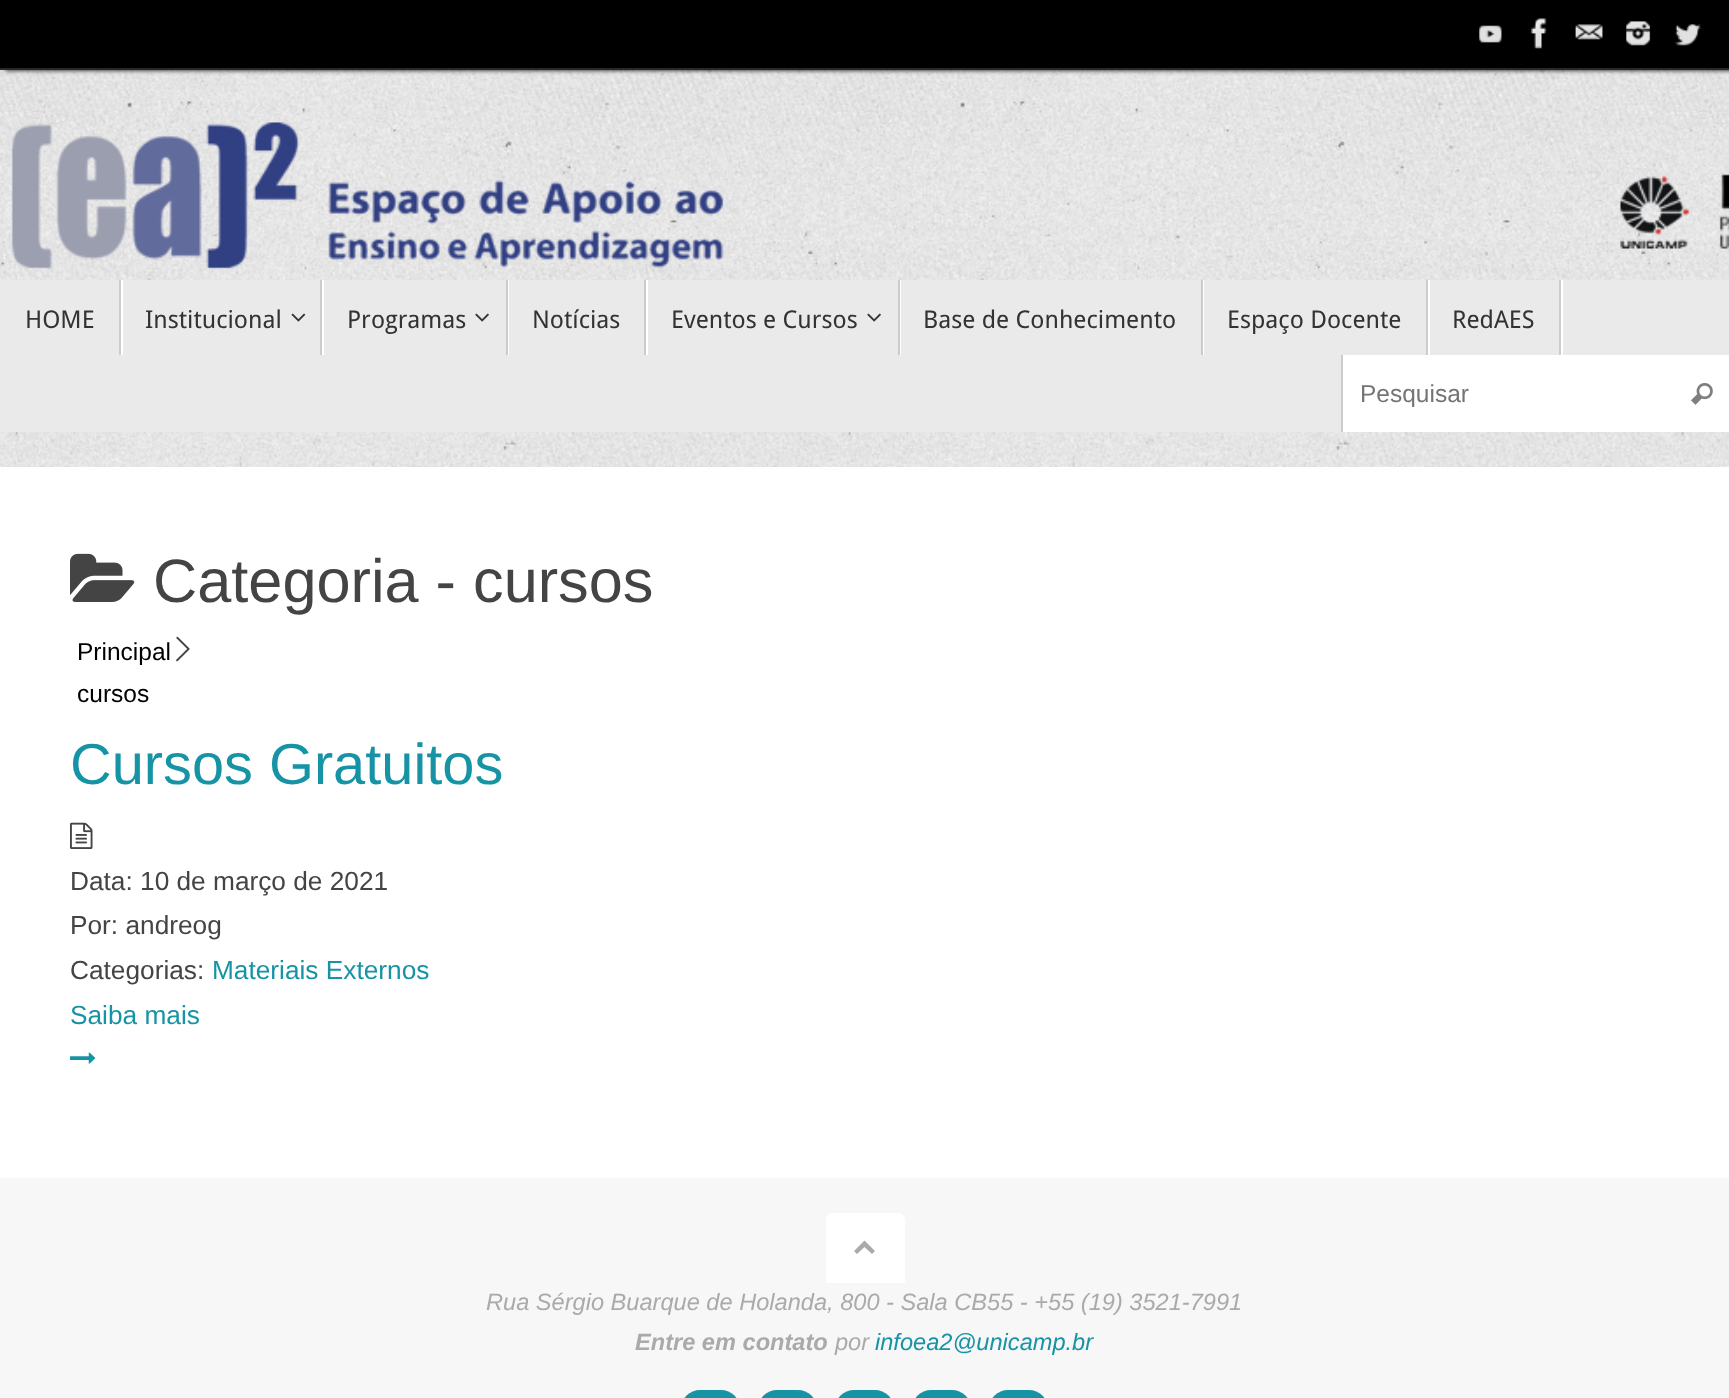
async function draw(canvas) {
	canvas.width = 1729;
	canvas.height = 1398;
	const c = canvas.getContext('2d');
	c.miterLimit = 4;
	c.fontKerning = 'normal';
	async function loadImage(src) {
		const img = new Image();
		img.src = src;
		await img.decode();
		return img;
	}

	c.fillStyle = '#fff';
	c.fillRect(0, 0, 1729, 1398);
	c.drawImage(await loadImage('img1.png'), 0, 70, 1729, 397);
	c.fillStyle = '#000';
	c.filter = 'blur(2.5px)';
	c.beginPath();
	c.rect(5, 0, 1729, 70);
	c.fill();
	c.filter = 'none';
	c.fillRect(0, 0, 1729, 68);
	c.fillStyle = '#282828';
	c.fillRect(0, 68, 1729, 2);
	c.drawImage(await loadImage('img2.png'), 1479, 25, 23, 18);
	c.drawImage(await loadImage('img3.png'), 1530, 18, 17, 31);
	c.drawImage(await loadImage('img4.png'), 1575, 24, 28, 16);
	c.drawImage(await loadImage('img5.png'), 1626, 21, 25, 25);
	c.drawImage(await loadImage('img6.png'), 1675, 24, 26, 22);
	c.drawImage(await loadImage('img7.png'), 11, 122, 1718, 147);
	for (const [x, y, w, h, color] of [
		[0, 280, 1729, 152, '#eaeaea'],
		[121, 280, 2, 75, '#fff'],
		[119, 280, 2, 75, '#ccc'],
	]) {
		c.fillStyle = color;
		c.fillRect(x, y, w, h);
	}
	c.font = '24.5px Droid Sans';
	c.fillStyle = '#333';
	c.fillText('HOME', 25, 328);
	c.fillStyle = '#fff';
	c.fillRect(322, 280, 2, 75);
	c.fillStyle = '#ccc';
	c.fillRect(320, 280, 2, 75);
	c.fillStyle = '#333';
	c.fillText('Institucional', 145, 328);
	c.drawImage(await loadImage('img8.png'), 291, 313, 15, 9);
	c.fillStyle = '#fff';
	c.fillRect(508, 280, 1, 75);
	c.fillStyle = '#ccc';
	c.fillRect(506, 280, 2, 75);
	c.fillStyle = '#333';
	c.fillText('Programas', 347, 328);
	c.drawImage(await loadImage('img9.png'), 475, 313, 14, 9);
	c.fillStyle = '#fff';
	c.fillRect(646, 280, 2, 75);
	c.fillStyle = '#ccc';
	c.fillRect(644, 280, 2, 75);
	c.fillStyle = '#333';
	c.fillText('Notícias', 532, 328);
	c.fillStyle = '#fff';
	c.fillRect(900, 280, 1, 75);
	c.fillStyle = '#ccc';
	c.fillRect(898, 280, 2, 75);
	c.fillStyle = '#333';
	c.fillText('Eventos e Cursos', 671, 328);
	c.drawImage(await loadImage('img9.png'), 867, 313, 14, 9);
	c.fillStyle = '#fff';
	c.fillRect(1203, 280, 1, 75);
	c.fillStyle = '#ccc';
	c.fillRect(1201, 280, 2, 75);
	c.fillStyle = '#333';
	c.fillText('Base de Conhecimento', 923, 328);
	c.fillStyle = '#fff';
	c.fillRect(1428, 280, 2, 75);
	c.fillStyle = '#ccc';
	c.fillRect(1426, 280, 2, 75);
	c.fillStyle = '#333';
	c.fillText('Espaço Docente', 1227, 328);
	c.fillStyle = '#fff';
	c.fillRect(1561, 280, 2, 75);
	c.fillStyle = '#ccc';
	c.fillRect(1559, 280, 2, 75);
	c.fillStyle = '#333';
	c.fillText('RedAES', 1452, 328);
	c.fillStyle = '#fff';
	c.fillRect(1343, 355, 386, 77);
	c.fillStyle = '#ccc';
	c.fillRect(1341, 355, 2, 77);
	c.font = '24.5px Liberation Sans';
	c.fillStyle = '#757575';
	c.fillText('Pesquisar', 1360, 402);
	c.drawImage(await loadImage('img10.png'), 1691, 383, 22, 22);
	c.drawImage(await loadImage('img11.png'), 70, 553, 65, 49);
	c.font = '61.25px Liberation Sans';
	c.fillStyle = '#444';
	c.fillText('Categoria - cursos', 153, 602);
	c.font = '24.5px Liberation Sans';
	c.fillStyle = '#000';
	c.fillText('Principal', 77, 660);
	c.drawImage(await loadImage('img12.png'), 176, 636, 14, 26);
	c.fillText('cursos', 77, 702);
	c.font = '57.75px Liberation Sans';
	c.fillStyle = '#1693a5';
	c.fillText('Cursos Gratuitos', 70, 784);
	c.drawImage(await loadImage('img13.png'), 70, 822, 23, 27);
	c.font = '26.25px Liberation Sans';
	c.fillStyle = '#444';
	for (const [text, x, y] of [
		['Data: 10 de março de 2021', 70, 890],
		['Por: andreog', 70, 934],
		['Categorias:', 70, 979],
	]) {
		c.fillText(text, x, y);
	}
	c.fillStyle = '#1693a5';
	c.fillText('Materiais Externos', 212, 979);
	c.fillText('Saiba mais', 70, 1024);
	c.drawImage(await loadImage('img14.png'), 70, 1052, 26, 12);
	c.fillStyle = '#f7f7f7';
	c.fillRect(0, 1178, 1729, 220);
	c.fillStyle = '#fff';
	c.beginPath();
	c.roundRect(826, 1213, 79, 70, [7, 7, 0, 0]);
	c.fill();
	c.fillStyle = '#aaa';
	c.beginPath();
	c.moveTo(854, 1251);
	c.lineTo(864.5, 1240.5);
	c.lineTo(875, 1251);
	c.lineTo(872, 1254);
	c.lineTo(864.5, 1247);
	c.lineTo(857, 1254);
	c.closePath();
	c.fill();
	c.font = 'italic 23.6px Liberation Sans';
	c.fillText('Rua Sérgio Buarque de Holanda, 800 - Sala CB55 - +55 (19) 3521-7991', 486, 1310);
	c.font = 'italic bold 23.6px Liberation Sans';
	c.fillText('Entre em contato', 635, 1350);
	c.font = 'italic 23.6px Liberation Sans';
	c.fillText('por', 835, 1350);
	c.fillStyle = '#1693a5';
	c.fillText('infoea2@unicamp.br', 875, 1350);
	c.beginPath();
	c.roundRect(681, 1390, 59, 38, 29.5);
	c.fill();
	c.beginPath();
	c.roundRect(758, 1390, 59, 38, 29.5);
	c.fill();
	c.beginPath();
	c.roundRect(835, 1390, 59, 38, 29.5);
	c.fill();
	c.beginPath();
	c.roundRect(912, 1390, 59, 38, 29.5);
	c.fill();
	c.beginPath();
	c.roundRect(989, 1390, 59, 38, 29.5);
	c.fill();
}

draw(document.querySelector('canvas'));
